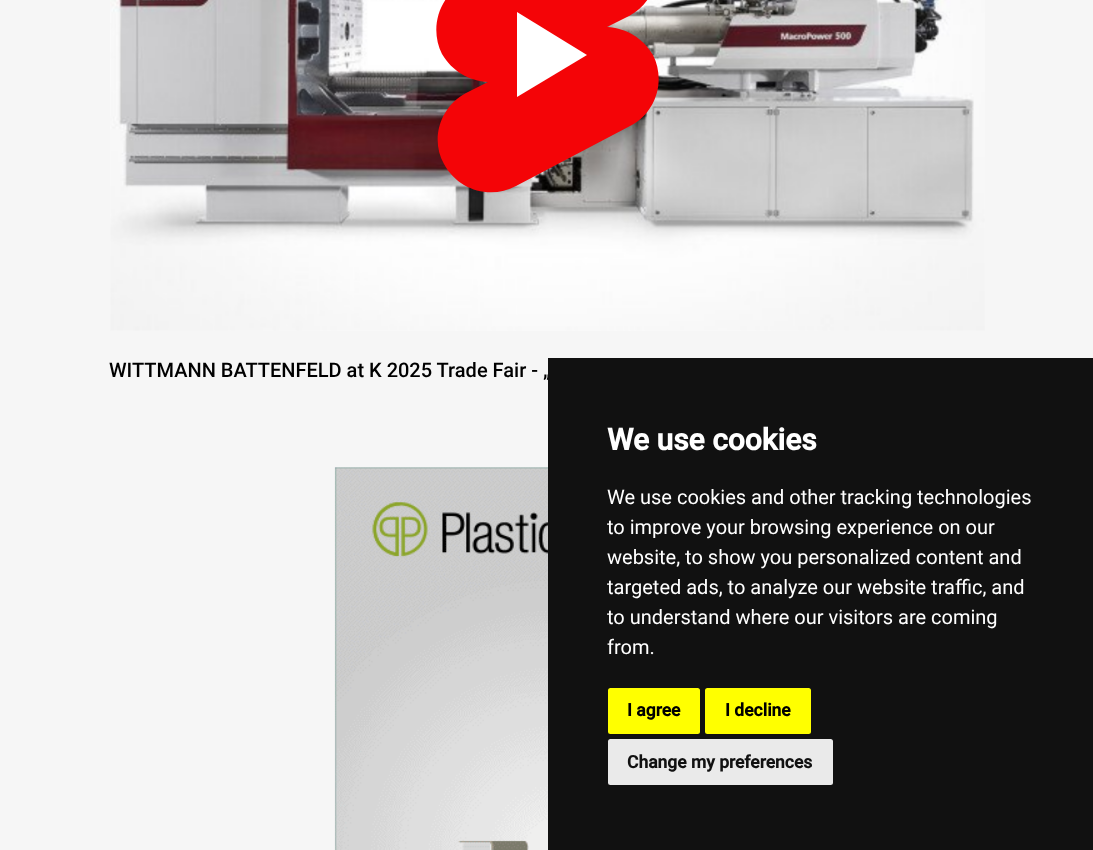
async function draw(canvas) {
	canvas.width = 1093;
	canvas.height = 850;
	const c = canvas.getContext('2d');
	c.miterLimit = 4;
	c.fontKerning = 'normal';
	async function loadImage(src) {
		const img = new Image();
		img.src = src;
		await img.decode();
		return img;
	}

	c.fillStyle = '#f6f6f6';
	c.fillRect(0, 0, 1093, 850);
	c.drawImage(await loadImage('img1.png'), 110, 0, 875, 331);
	c.fillStyle = '#f40407';
	c.beginPath();
	c.moveTo(579, -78);
	c.bezierCurveTo(605, -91, 637, -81, 651, -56);
	c.bezierCurveTo(665, -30, 655, 2, 629, 16);
	c.lineTo(607, 27);
	c.bezierCurveTo(626, 28, 643, 38, 653, 55);
	c.bezierCurveTo(666, 81, 656, 113, 630, 126);
	c.lineTo(516, 186);
	c.bezierCurveTo(490, 200, 458, 190, 444, 164);
	c.bezierCurveTo(430, 139, 440, 107, 466, 93);
	c.lineTo(488, 82);
	c.bezierCurveTo(469, 81, 452, 71, 442, 54);
	c.bezierCurveTo(429, 28, 439, -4, 465, -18);
	c.closePath();
	c.moveTo(517, 12);
	c.lineTo(587, 55);
	c.lineTo(517, 97);
	c.closePath();
	c.fill();
	c.fillStyle = '#fff';
	c.beginPath();
	c.moveTo(517, 12);
	c.lineTo(517, 97);
	c.lineTo(587, 55);
	c.closePath();
	c.fill();
	c.font = '500 20px Roboto';
	c.fillStyle = '#000';
	c.fillText('WITTMANN BATTENFELD at K 2025 Trade Fair - „', 109, 377);
	c.drawImage(await loadImage('img2.png'), 334, 467, 214, 383);
	c.fillStyle = '#111';
	c.fillRect(548, 358, 545, 492);
	c.font = 'bold 30px Roboto';
	c.fillStyle = '#fff';
	c.fillText('We use cookies', 607, 450);
	c.font = '20px Roboto';
	for (const [text, x, y] of [
		['We use cookies and other tracking technologies', 607, 504],
		['to improve your browsing experience on our', 607, 534],
		['website, to show you personalized content and', 607, 564],
		['targeted ads, to analyze our website traffic, and', 607, 594],
		['to understand where our visitors are coming', 607, 624],
		['from.', 607, 654],
	]) {
		c.fillText(text, x, y);
	}
	c.fillStyle = '#ff0';
	c.beginPath();
	c.roundRect(608, 688, 92, 46, 2.5);
	c.fill();
	c.font = 'bold 17.5px Roboto';
	c.fillStyle = '#000';
	c.fillText('I agree', 627, 716);
	c.fillStyle = '#ff0';
	c.beginPath();
	c.roundRect(705, 688, 106, 46, 2.5);
	c.fill();
	c.fillStyle = '#000';
	c.fillText('I decline', 725, 716);
	c.fillStyle = '#eaeaea';
	c.beginPath();
	c.roundRect(608, 739, 225, 46, 2.5);
	c.fill();
	c.fillStyle = '#111';
	c.fillText('Change my preferences', 627, 768);
}

draw(document.querySelector('canvas'));
